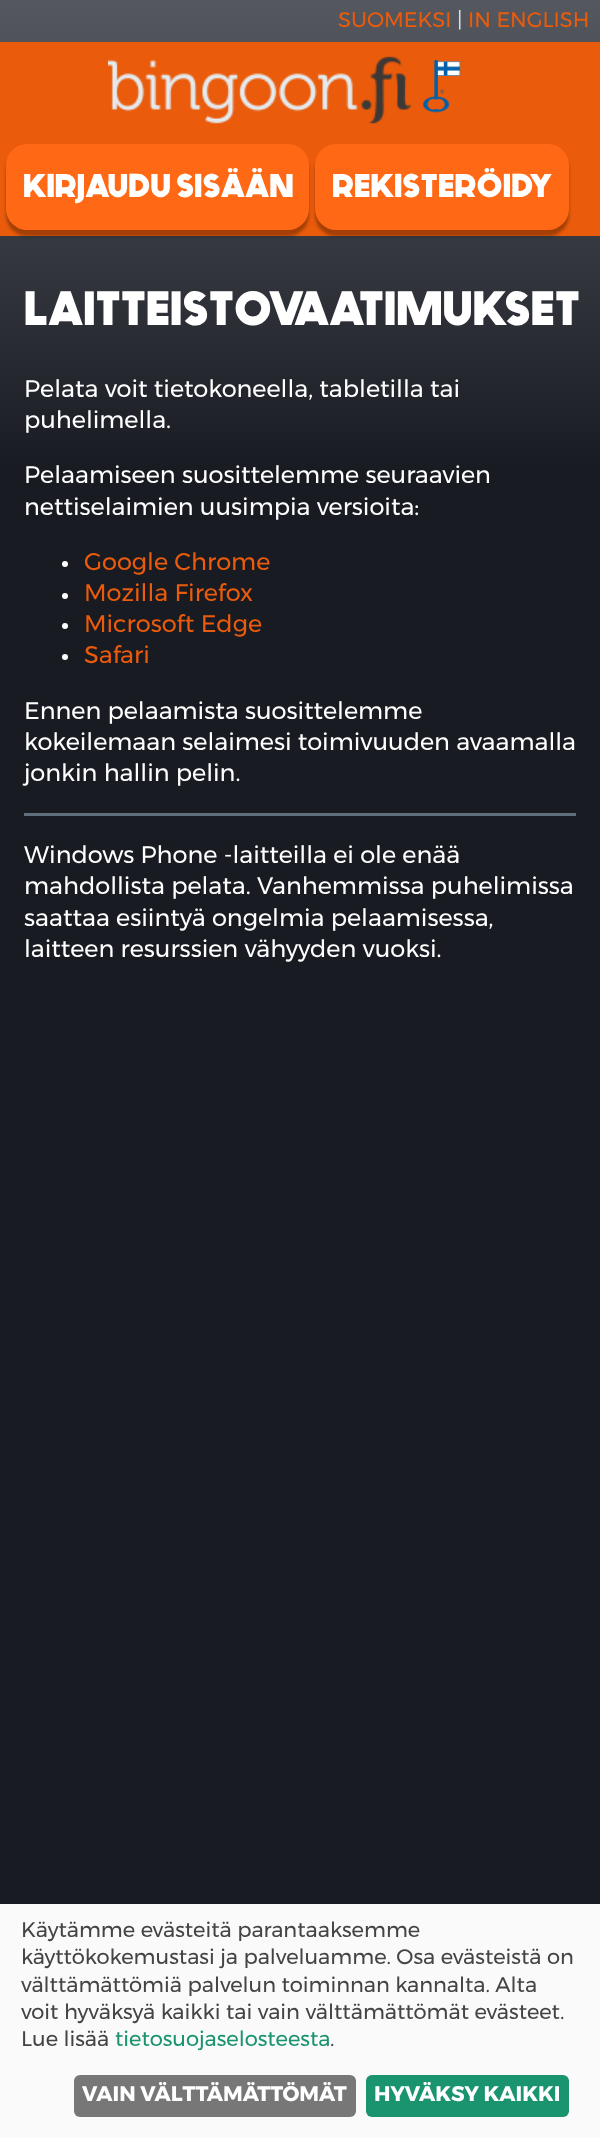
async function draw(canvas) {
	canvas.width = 600;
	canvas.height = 2138;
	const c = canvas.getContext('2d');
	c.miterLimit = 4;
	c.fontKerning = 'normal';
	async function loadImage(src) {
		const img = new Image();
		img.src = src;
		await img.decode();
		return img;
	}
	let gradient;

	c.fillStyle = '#fff';
	c.fillRect(0, 0, 600, 2138);
	gradient = c.createLinearGradient(300, 0, 300, 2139);
	gradient.addColorStop(0, '#565860');
	gradient.addColorStop(0.22, '#191b23');
	c.fillStyle = gradient;
	c.fillRect(0, 0, 600, 1904);
	c.font = '21px Montserrat';
	c.fillStyle = '#ea5b0b';
	c.fillText('SUOMEKSI', 338, 27);
	c.fillStyle = '#ddd';
	c.fillText('|', 457, 27);
	c.fillStyle = '#ea5b0b';
	c.fillText('IN ENGLISH', 468, 27);
	c.fillRect(0, 42, 600, 194);
	c.drawImage(await loadImage('img1.png'), 108, 56, 303, 68);
	c.drawImage(await loadImage('img2.png'), 423, 60, 38, 53);
	c.fillStyle = '#0000004d';
	c.filter = 'blur(1.5px)';
	c.beginPath();
	c.roundRect(6, 150, 303, 86, 21);
	c.fill();
	c.filter = 'none';
	c.fillStyle = '#ff6915';
	c.beginPath();
	c.roundRect(6, 144, 303, 86, 21);
	c.fill();
	c.font = 'bold 33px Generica';
	c.fillStyle = '#fff';
	c.fillText('KIRJAUDU SISÄÄN', 23, 197);
	c.fillStyle = '#0000004d';
	c.filter = 'blur(1.5px)';
	c.beginPath();
	c.roundRect(315, 150, 254, 86, 21);
	c.fill();
	c.filter = 'none';
	c.fillStyle = '#ff6915';
	c.beginPath();
	c.roundRect(315, 144, 254, 86, 21);
	c.fill();
	c.fillStyle = '#fff';
	c.fillText('REKISTERÖIDY', 332, 197);
	c.font = 'bold 48px Generica';
	c.fillText('LAITTEISTOVAATIMUKSET', 24, 325);
	c.font = '24px Montserrat';
	for (const [text, x, y] of [
		['Pelata voit tietokoneella, tabletilla tai', 24, 397],
		['puhelimella.', 24, 428],
		['Pelaamiseen suosittelemme seuraavien', 24, 483],
		['nettiselaimien uusimpia versioita:', 24, 515],
	]) {
		c.fillText(text, x, y);
	}
	c.beginPath();
	c.arc(65, 564, 3, 0, 2 * Math.PI);
	c.fill();
	c.fillStyle = '#ea5b0b';
	c.fillText('Google Chrome', 84, 570);
	c.fillStyle = '#fff';
	c.beginPath();
	c.arc(65, 596, 3, 0, 2 * Math.PI);
	c.fill();
	c.fillStyle = '#ea5b0b';
	c.fillText('Mozilla Firefox', 84, 601);
	c.fillStyle = '#fff';
	c.beginPath();
	c.arc(65, 626, 3, 0, 2 * Math.PI);
	c.fill();
	c.fillStyle = '#ea5b0b';
	c.fillText('Microsoft Edge', 84, 632);
	c.fillStyle = '#fff';
	c.beginPath();
	c.arc(65, 657, 3, 0, 2 * Math.PI);
	c.fill();
	c.fillStyle = '#ea5b0b';
	c.fillText('Safari', 84, 663);
	c.fillStyle = '#fff';
	for (const [text, x, y] of [
		['Ennen pelaamista suosittelemme', 24, 719],
		['kokeilemaan selaimesi toimivuuden avaamalla', 24, 750],
		['jonkin hallin pelin.', 24, 781],
	]) {
		c.fillText(text, x, y);
	}
	c.fillStyle = '#5d6f7a';
	c.fillRect(24, 813, 552, 3);
	c.fillStyle = '#fff';
	for (const [text, x, y] of [
		['Windows Phone -laitteilla ei ole enää', 24, 863],
		['mahdollista pelata. Vanhemmissa puhelimissa', 24, 894],
		['saattaa esiintyä ongelmia pelaamisessa,', 24, 926],
		['laitteen resurssien vähyyden vuoksi.', 24, 957],
	]) {
		c.fillText(text, x, y);
	}
	c.fillStyle = '#fafafa';
	c.fillRect(0, 1904, 600, 234);
	c.font = '21px Montserrat';
	c.fillStyle = '#444';
	for (const [text, x, y] of [
		['Käytämme evästeitä parantaaksemme', 21, 1937],
		['käyttökokemustasi ja palveluamme. Osa evästeistä on', 21, 1964],
		['välttämättömiä palvelun toiminnan kannalta. Alta', 21, 1992],
		['voit hyväksyä kaikki tai vain välttämättömät evästeet.', 21, 2019],
		['Lue lisää', 21, 2046],
	]) {
		c.fillText(text, x, y);
	}
	c.fillStyle = '#1a936f';
	c.fillText('tietosuojaselosteesta', 115, 2046);
	c.fillStyle = '#444';
	c.fillText('.', 330, 2046);
	c.fillStyle = '#777';
	c.beginPath();
	c.roundRect(74, 2075, 282, 42, 6);
	c.fill();
	c.font = 'bold 21px Montserrat';
	c.fillStyle = '#fff';
	c.fillText('VAIN VÄLTTÄMÄTTÖMÄT', 82, 2101);
	c.fillStyle = '#1a936f';
	c.beginPath();
	c.roundRect(366, 2075, 203, 42, 6);
	c.fill();
	c.fillStyle = '#fff';
	c.fillText('HYVÄKSY KAIKKI', 374, 2101);
}

draw(document.querySelector('canvas'));
